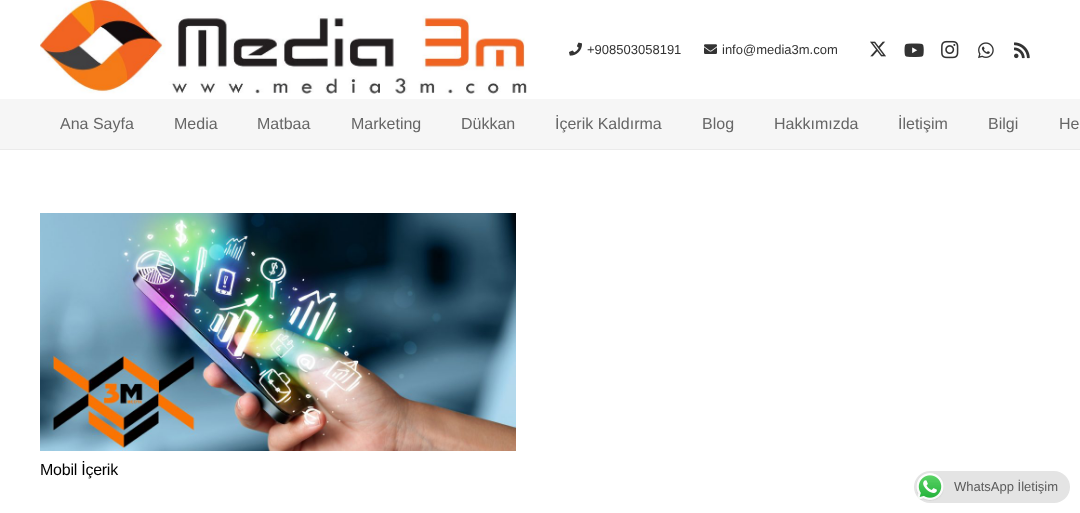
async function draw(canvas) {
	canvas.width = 1080;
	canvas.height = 513;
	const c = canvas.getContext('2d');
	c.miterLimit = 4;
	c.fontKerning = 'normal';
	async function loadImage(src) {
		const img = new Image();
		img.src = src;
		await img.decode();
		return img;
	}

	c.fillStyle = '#fff';
	c.fillRect(0, 0, 1080, 513);
	c.drawImage(await loadImage('img1.png'), 40, 0, 487, 94);
	c.drawImage(await loadImage('img2.png'), 569, 42, 13, 14);
	c.font = '13px Liberation Sans';
	c.fillStyle = '#333';
	c.fillText('+908503058191', 587, 54);
	c.drawImage(await loadImage('img3.png'), 704, 44, 13, 10);
	c.fillText('info@media3m.com', 722, 54);
	c.drawImage(await loadImage('img4.png'), 870, 41, 16, 16);
	c.drawImage(await loadImage('img5.png'), 904, 43, 20, 14);
	c.drawImage(await loadImage('img6.png'), 941, 40, 18, 19);
	c.drawImage(await loadImage('img7.png'), 978, 42, 16, 17);
	c.drawImage(await loadImage('img8.png'), 1014, 42, 16, 17);
	c.fillStyle = '#ebebeb';
	c.fillRect(0, 149, 1080, 1);
	c.fillStyle = '#f6f6f6';
	c.fillRect(0, 99, 1080, 50);
	c.font = '16px Liberation Sans';
	c.fillStyle = '#666';
	for (const [text, x, y] of [
		['Ana Sayfa', 60, 129],
		['Media', 174, 129],
		['Matbaa', 257, 129],
		['Marketing', 351, 129],
		['Dükkan', 461, 129],
		['İçerik Kaldırma', 555, 129],
		['Blog', 702, 129],
		['Hakkımızda', 774, 129],
		['İletişim', 898, 129],
		['Bilgi', 988, 129],
		['He', 1059, 129],
	]) {
		c.fillText(text, x, y);
	}
	c.drawImage(await loadImage('img9.png'), 40, 213, 476, 238);
	c.letterSpacing = '-0.25px';
	c.fillStyle = '#000';
	c.fillText('Mobil İçerik', 40, 475);
	c.fillStyle = '#e4e4e4';
	c.beginPath();
	c.roundRect(914, 471, 156, 32, 16);
	c.fill();
	c.drawImage(await loadImage('img10.png'), 916, 473, 28, 28);
	c.letterSpacing = '0px';
	c.font = '13px Liberation Sans';
	c.fillStyle = '#5b5b5b';
	c.fillText('WhatsApp İletişim', 954, 491);
}

draw(document.querySelector('canvas'));
